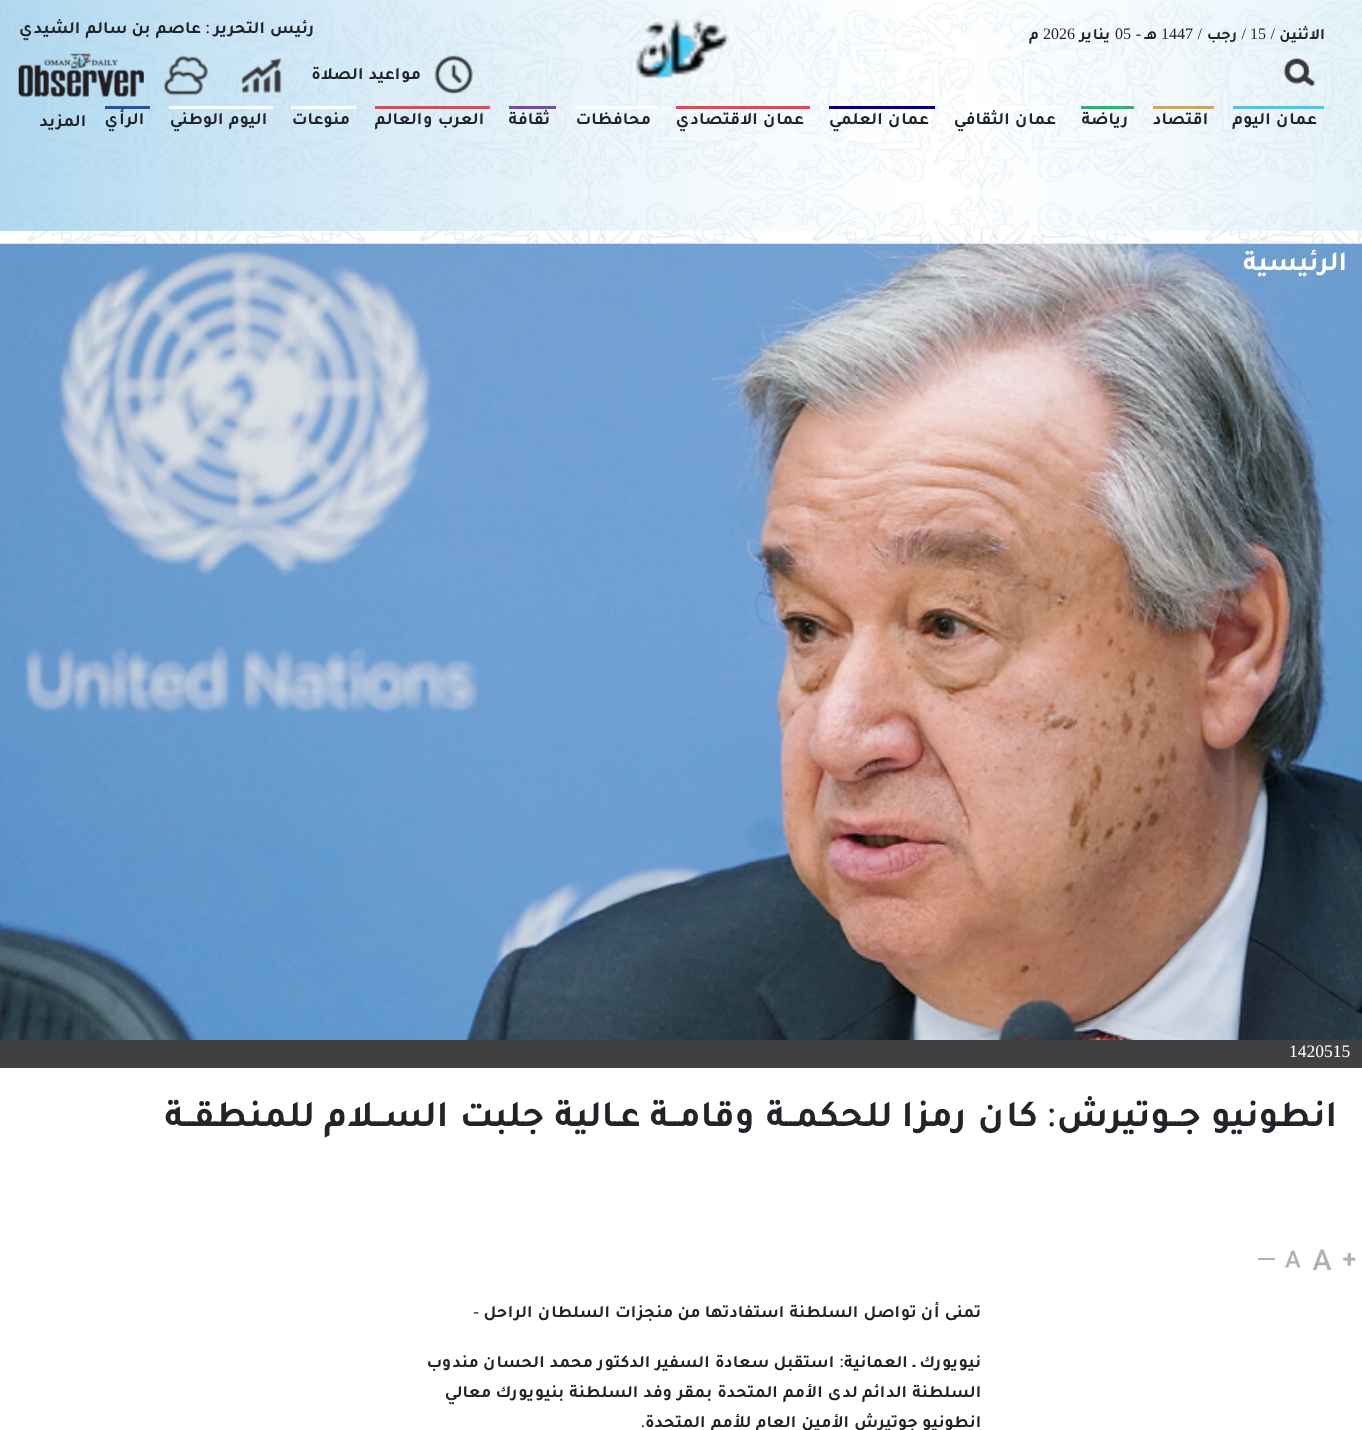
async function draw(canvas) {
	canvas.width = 1362;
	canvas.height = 1430;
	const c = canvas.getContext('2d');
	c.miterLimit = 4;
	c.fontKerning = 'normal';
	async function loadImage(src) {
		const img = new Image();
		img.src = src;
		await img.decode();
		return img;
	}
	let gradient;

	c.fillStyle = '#fff';
	c.fillRect(0, 0, 1362, 1430);
	c.drawImage(await loadImage('img1.png'), 0, 0, 1362, 244);
	gradient = c.createLinearGradient(0, 116, 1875, 116);
	gradient.addColorStop(0, '#9bceeccc');
	gradient.addColorStop(0.5, '#ffffff66');
	gradient.addColorStop(1, '#9bceeccc');
	c.fillStyle = gradient;
	c.fillRect(0, 0, 1362, 231);
	c.direction = 'rtl';
	c.font = 'bold 16px Tajawal';
	c.fillStyle = '#212529';
	c.fillText('الاثنين', 1325, 39);
	c.font = '16px Liberation Serif';
	c.fillText('/', 1275, 39);
	c.direction = 'ltr';
	c.fillText('15', 1250, 39);
	c.direction = 'rtl';
	c.fillText('/', 1246, 39);
	c.font = 'bold 16px Tajawal';
	c.fillText('رجب', 1237, 39);
	c.font = '16px Liberation Serif';
	c.fillText('/', 1202, 39);
	c.direction = 'ltr';
	c.fillText('1447', 1161, 39);
	c.direction = 'rtl';
	c.font = 'bold 16px Tajawal';
	c.fillText('هـ', 1157, 39);
	c.font = '16px Liberation Serif';
	c.fillText('-', 1141, 39);
	c.direction = 'ltr';
	c.fillText('05', 1115, 39);
	c.direction = 'rtl';
	c.font = 'bold 16px Tajawal';
	c.fillText('يناير', 1110, 39);
	c.direction = 'ltr';
	c.font = '16px Liberation Serif';
	c.fillText('2026', 1043, 39);
	c.direction = 'rtl';
	c.font = 'bold 16px Tajawal';
	c.fillText('م', 1039, 39);
	c.drawImage(await loadImage('img2.png'), 1283, 58, 33, 29);
	c.drawImage(await loadImage('img3.png'), 635, 18, 94, 60);
	c.font = 'bold 17.5px Tajawal';
	c.fillText('رئيس التحرير', 314, 33);
	c.font = '17.5px Liberation Serif';
	c.fillText(':', 210, 33);
	c.font = 'bold 17.5px Tajawal';
	c.fillText('عاصم بن سالم الشيدي', 201, 33);
	c.drawImage(await loadImage('img4.png'), 434, 55, 39, 40);
	c.fillText('مواعيد الصلاة', 421, 79);
	c.drawImage(await loadImage('img5.png'), 240, 58, 42, 35);
	c.drawImage(await loadImage('img6.png'), 163, 55, 45, 41);
	c.drawImage(await loadImage('img7.png'), 18, 53, 126, 44);
	c.fillStyle = '#4bc6ec';
	c.fillRect(1233, 106, 91, 3);
	c.fillStyle = '#212529';
	c.fillText('عمان اليوم', 1317, 124);
	c.fillStyle = '#d9a450';
	c.fillRect(1153, 106, 61, 3);
	c.fillStyle = '#212529';
	c.fillText('اقتصاد', 1208, 124);
	c.fillStyle = '#2ab574';
	c.fillRect(1081, 106, 53, 3);
	c.fillStyle = '#212529';
	c.fillText('رياضة', 1128, 124);
	c.fillStyle = '#fff';
	c.fillRect(954, 106, 109, 3);
	c.fillStyle = '#212529';
	c.fillText('عمان الثقافي', 1056, 124);
	c.fillStyle = '#000080';
	c.fillRect(829, 106, 106, 3);
	c.fillStyle = '#212529';
	c.fillText('عمان العلمي', 929, 124);
	c.fillStyle = '#e84651';
	c.fillRect(676, 106, 134, 3);
	c.fillStyle = '#212529';
	c.fillText('عمان الاقتصادي', 804, 124);
	c.fillStyle = '#fff';
	c.fillRect(575, 106, 83, 3);
	c.fillStyle = '#212529';
	c.fillText('محافظات', 651, 124);
	c.fillStyle = '#794a9d';
	c.fillRect(509, 106, 47, 3);
	c.fillStyle = '#212529';
	c.fillText('ثقافة', 550, 124);
	c.fillStyle = '#e84651';
	c.fillRect(375, 106, 115, 3);
	c.fillStyle = '#212529';
	c.fillText('العرب والعالم', 484, 124);
	c.fillStyle = '#fff';
	c.fillRect(291, 106, 65, 3);
	c.fillStyle = '#212529';
	c.fillText('منوعات', 350, 124);
	c.fillStyle = '#fff';
	c.fillRect(169, 106, 104, 3);
	c.fillStyle = '#212529';
	c.fillText('اليوم الوطني', 267, 124);
	c.fillText('الرأي', 144, 124);
	c.fillStyle = '#2355a5';
	c.fillRect(105, 106, 45, 3);
	c.fillStyle = '#212529';
	c.fillText('المزيد', 86, 126);
	c.drawImage(await loadImage('img8.png'), 0, 243, 1362, 797);
	c.font = 'bold 27.5px Tajawal';
	c.fillStyle = '#fff';
	c.fillText('الرئيسية', 1347, 270);
	c.fillStyle = '#404041';
	c.fillRect(0, 1040, 1362, 28);
	c.direction = 'ltr';
	c.font = '17.5px Liberation Serif';
	c.fillStyle = '#fff';
	c.fillText('1420515', 1289, 1057);
	c.direction = 'rtl';
	c.font = 'bold 37.5px Tajawal';
	c.fillStyle = '#212529';
	c.fillText('انطونيو جــوتيرش', 1337, 1126);
	c.font = '37.5px Liberation Serif';
	c.fillText(':', 1057, 1126);
	c.font = 'bold 37.5px Tajawal';
	c.fillText('كان رمزا للحكمــة وقامــة عـالية جلبت الســلام للمنطقــة', 1038, 1126);
	c.drawImage(await loadImage('img9.png'), 1343, 1253, 13, 13);
	c.drawImage(await loadImage('img10.png'), 1313, 1249, 19, 21);
	c.drawImage(await loadImage('img11.png'), 1285, 1250, 16, 18);
	c.fillStyle = '#b1b1b1';
	c.fillRect(1258, 1258, 17, 2);
	c.font = 'bold 17.5px Tajawal';
	c.fillStyle = '#212529';
	c.fillText('تمنى أن تواصل السلطنة استفادتها من منجزات السلطان الراحل', 981, 1317);
	c.font = '17.5px Liberation Serif';
	c.fillText('-', 479, 1317);
	c.font = 'bold 17.5px Tajawal';
	c.fillText('نيويورك ـ العمانية', 981, 1367);
	c.font = '17.5px Liberation Serif';
	c.fillText(':', 844, 1367);
	c.font = 'bold 17.5px Tajawal';
	for (const [text, x, y] of [
		['استقبل سعادة السفير الدكتور محمد الحسان مندوب', 834, 1367],
		['السلطنة الدائم لدى الأمم المتحدة بمقر وفد السلطنة بنيويورك معالي', 981, 1397],
		['انطونيو جوتيرش الأمين العام للأمم المتحدة', 981, 1427],
	]) {
		c.fillText(text, x, y);
	}
	c.font = '17.5px Liberation Serif';
	c.fillText('.', 645, 1427);
}

draw(document.querySelector('canvas'));
